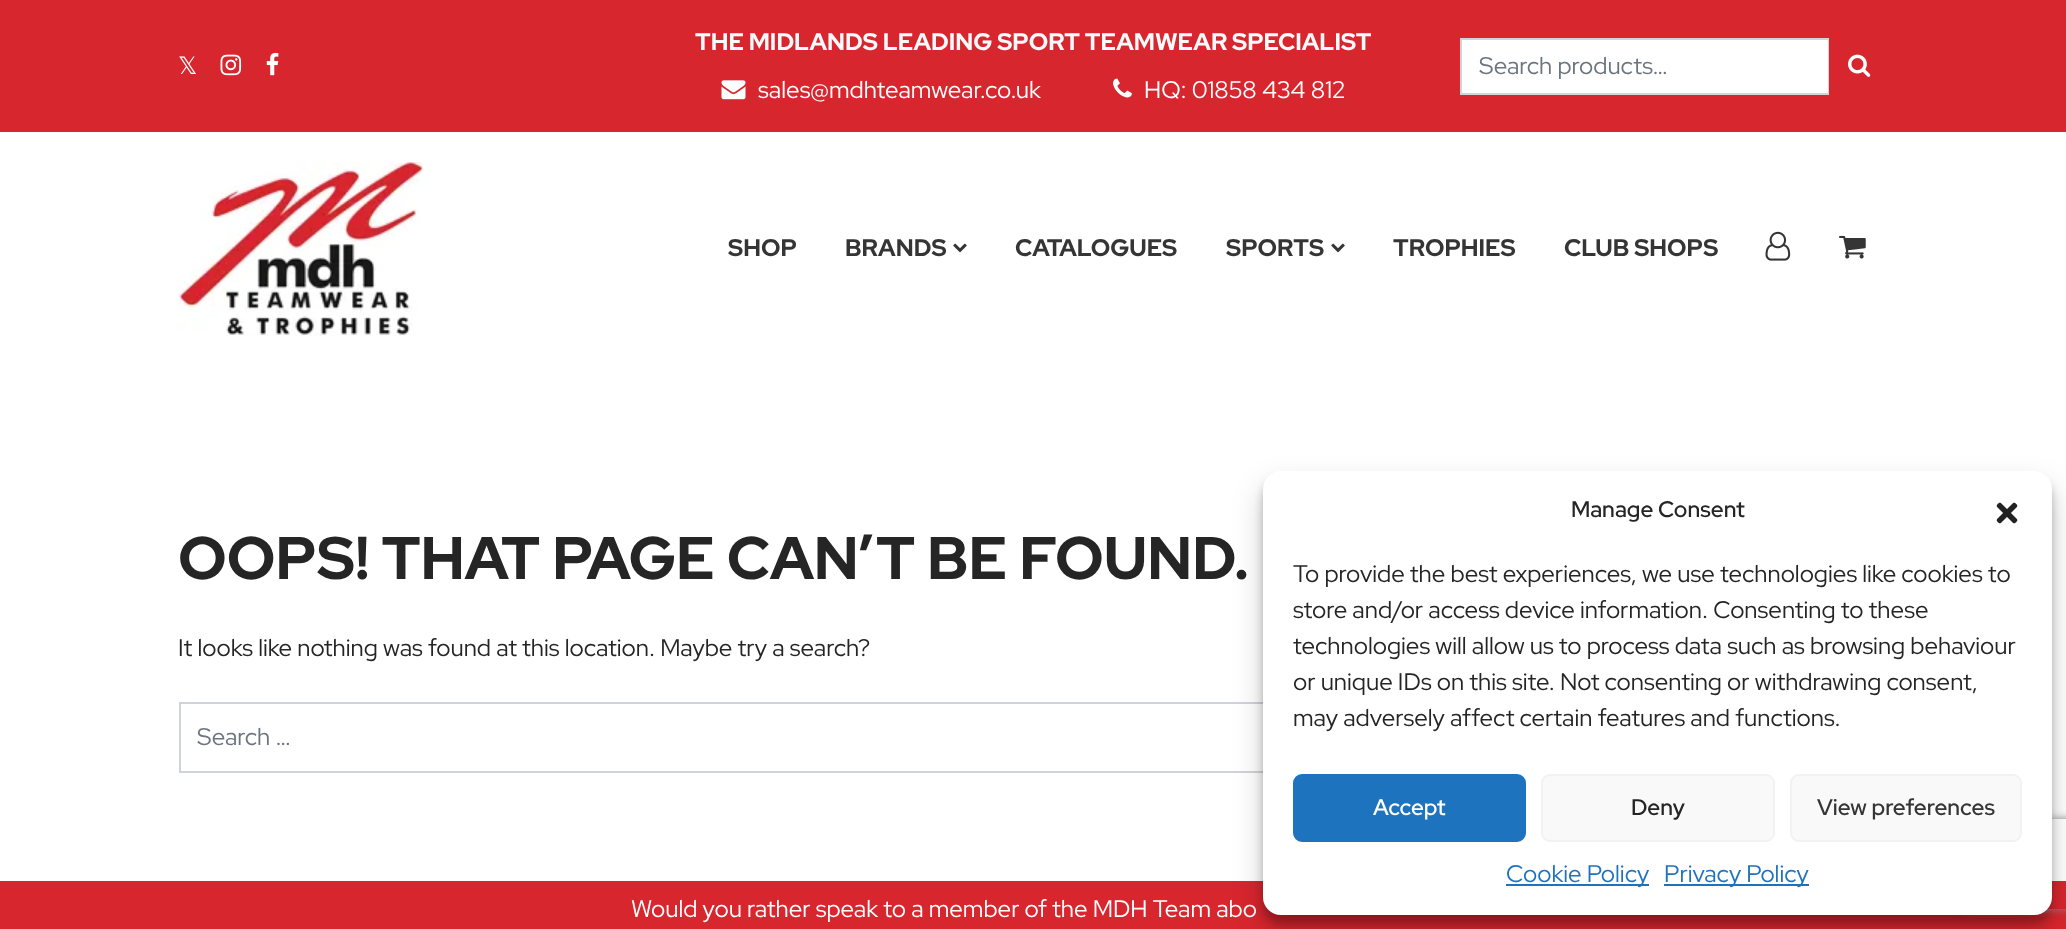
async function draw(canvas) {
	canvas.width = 2066;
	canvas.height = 929;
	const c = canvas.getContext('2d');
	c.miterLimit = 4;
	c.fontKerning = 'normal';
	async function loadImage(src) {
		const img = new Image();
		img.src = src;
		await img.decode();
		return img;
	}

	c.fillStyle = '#fff';
	c.fillRect(0, 0, 2066, 929);
	c.fillStyle = '#d8262e';
	c.fillRect(0, 0, 2066, 132);
	c.font = '24px DejaVu Sans';
	c.fillStyle = '#fff';
	c.fillText('𝕏', 178, 74);
	c.drawImage(await loadImage('img1.png'), 220, 54, 22, 22);
	c.drawImage(await loadImage('img2.png'), 266, 52, 13, 24);
	c.font = 'bold 24px Red Hat Display';
	c.fillStyle = '#f8f9fa';
	c.fillText('THE MIDLANDS LEADING SPORT TEAMWEAR SPECIALIST', 695, 50);
	c.drawImage(await loadImage('img3.png'), 721, 80, 25, 20);
	c.font = '24px Red Hat Display';
	c.fillStyle = '#fff';
	c.fillText('sales@mdhteamwear.co.uk', 758, 98);
	c.drawImage(await loadImage('img4.png'), 1113, 78, 19, 20);
	c.fillText('HQ: 01858 434 812', 1144, 98);
	c.beginPath();
	c.rect(1461, 39, 368, 55);
	c.fill();
	c.strokeStyle = '#ced4da';
	c.lineWidth = 2;
	c.stroke();
	c.fillStyle = '#6c757d';
	c.fillText('Search products…', 1479, 74);
	c.fillStyle = '#d8262e';
	c.fillRect(1829, 38, 1, 57);
	c.drawImage(await loadImage('img5.png'), 1848, 54, 23, 23);
	c.drawImage(await loadImage('img6.png'), 178, 162, 245, 174);
	c.font = 'bold 24px Red Hat Display';
	c.fillStyle = '#353535';
	c.fillText('SHOP', 728, 256);
	c.fillText('BRANDS', 845, 256);
	c.drawImage(await loadImage('img7.png'), 953, 243, 14, 10);
	c.fillText('CATALOGUES', 1015, 256);
	c.fillText('SPORTS', 1226, 256);
	c.drawImage(await loadImage('img7.png'), 1331, 243, 14, 10);
	c.fillText('TROPHIES', 1393, 256);
	c.fillText('CLUB SHOPS', 1564, 256);
	c.drawImage(await loadImage('img8.png'), 1765, 231, 26, 30);
	c.drawImage(await loadImage('img9.png'), 1839, 235, 27, 24);
	c.font = 'bold 60px Red Hat Display';
	c.fillStyle = '#252525';
	c.fillText('OOPS! THAT PAGE CAN’T BE FOUND.', 178, 579);
	c.font = '24px Red Hat Display';
	c.fillText('It looks like nothing was found at this location. Maybe try a search?', 178, 656);
	c.strokeRect(180, 703, 1520, 69);
	c.fillStyle = '#6c757d';
	c.fillText('Search …', 197, 745);
	c.fillStyle = '#d8262e';
	c.fillRect(0, 881, 2066, 48);
	c.fillStyle = '#fff';
	c.fillText('Would you rather speak to a member of the MDH Team abo', 631, 917);
	c.fillStyle = '#0000003b';
	c.filter = 'blur(4.5px)';
	c.beginPath();
	c.roundRect(1263, 480, 789, 444, 18);
	c.fill();
	c.filter = 'none';
	c.fillStyle = '#00000030';
	c.filter = 'blur(15px)';
	c.beginPath();
	c.roundRect(1263, 486, 789, 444, 18);
	c.fill();
	c.filter = 'none';
	c.save();
	c.beginPath();
	c.moveTo(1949, 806);
	c.lineTo(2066, 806);
	c.lineTo(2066, 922);
	c.lineTo(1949, 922);
	c.closePath();
	c.moveTo(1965, 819);
	c.lineTo(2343, 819);
	c.bezierCurveTo(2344.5, 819, 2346, 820.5, 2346, 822);
	c.lineTo(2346, 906);
	c.bezierCurveTo(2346, 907.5, 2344.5, 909, 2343, 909);
	c.lineTo(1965, 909);
	c.bezierCurveTo(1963.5, 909, 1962, 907.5, 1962, 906);
	c.lineTo(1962, 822);
	c.bezierCurveTo(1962, 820.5, 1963.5, 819, 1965, 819);
	c.closePath();
	c.clip('evenodd');
	c.fillStyle = '#808080';
	c.filter = 'blur(4px)';
	c.beginPath();
	c.roundRect(1962, 819, 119, 90, 3);
	c.fill();
	c.filter = 'none';
	c.restore();
	c.fillStyle = '#fff';
	c.beginPath();
	c.roundRect(1263, 471, 789, 444, 18);
	c.fill();
	c.font = '500 22.5px Red Hat Display';
	c.fillStyle = '#252525';
	c.fillText('Manage Consent', 1571, 517);
	c.drawImage(await loadImage('img10.png'), 1996, 502, 22, 22);
	c.font = '24px Red Hat Display';
	for (const [text, x, y] of [
		['To provide the best experiences, we use technologies like cookies to', 1293, 582],
		['store and/or access device information. Consenting to these', 1293, 618],
		['technologies will allow us to process data such as browsing behaviour', 1293, 654],
		['or unique IDs on this site. Not consenting or withdrawing consent,', 1293, 690],
		['may adversely affect certain features and functions.', 1293, 726],
	]) {
		c.fillText(text, x, y);
	}
	c.fillStyle = '#1e73be';
	c.beginPath();
	c.roundRect(1294, 775, 231, 66, 8);
	c.fill();
	c.strokeStyle = '#1e73be';
	c.stroke();
	c.font = '500 22.5px Red Hat Display';
	c.fillStyle = '#fff';
	c.fillText('Accept', 1373, 815);
	c.fillStyle = '#f9f9f9';
	c.beginPath();
	c.roundRect(1542, 775, 232, 66, 8);
	c.fill();
	c.strokeStyle = '#f2f2f2';
	c.stroke();
	c.fillStyle = '#252525';
	c.fillText('Deny', 1631, 815);
	c.fillStyle = '#f9f9f9';
	c.beginPath();
	c.roundRect(1791, 775, 230, 66, 8);
	c.fill();
	c.stroke();
	c.fillStyle = '#353535';
	c.fillText('View preferences', 1817, 815);
	c.fillStyle = '#1e73be';
	c.fillRect(1506, 884, 143, 2);
	c.font = '24px Red Hat Display';
	c.fillText('Cookie Policy', 1506, 882);
	c.fillRect(1664, 884, 145, 2);
	c.fillText('Privacy Policy', 1664, 882);
}

draw(document.querySelector('canvas'));
